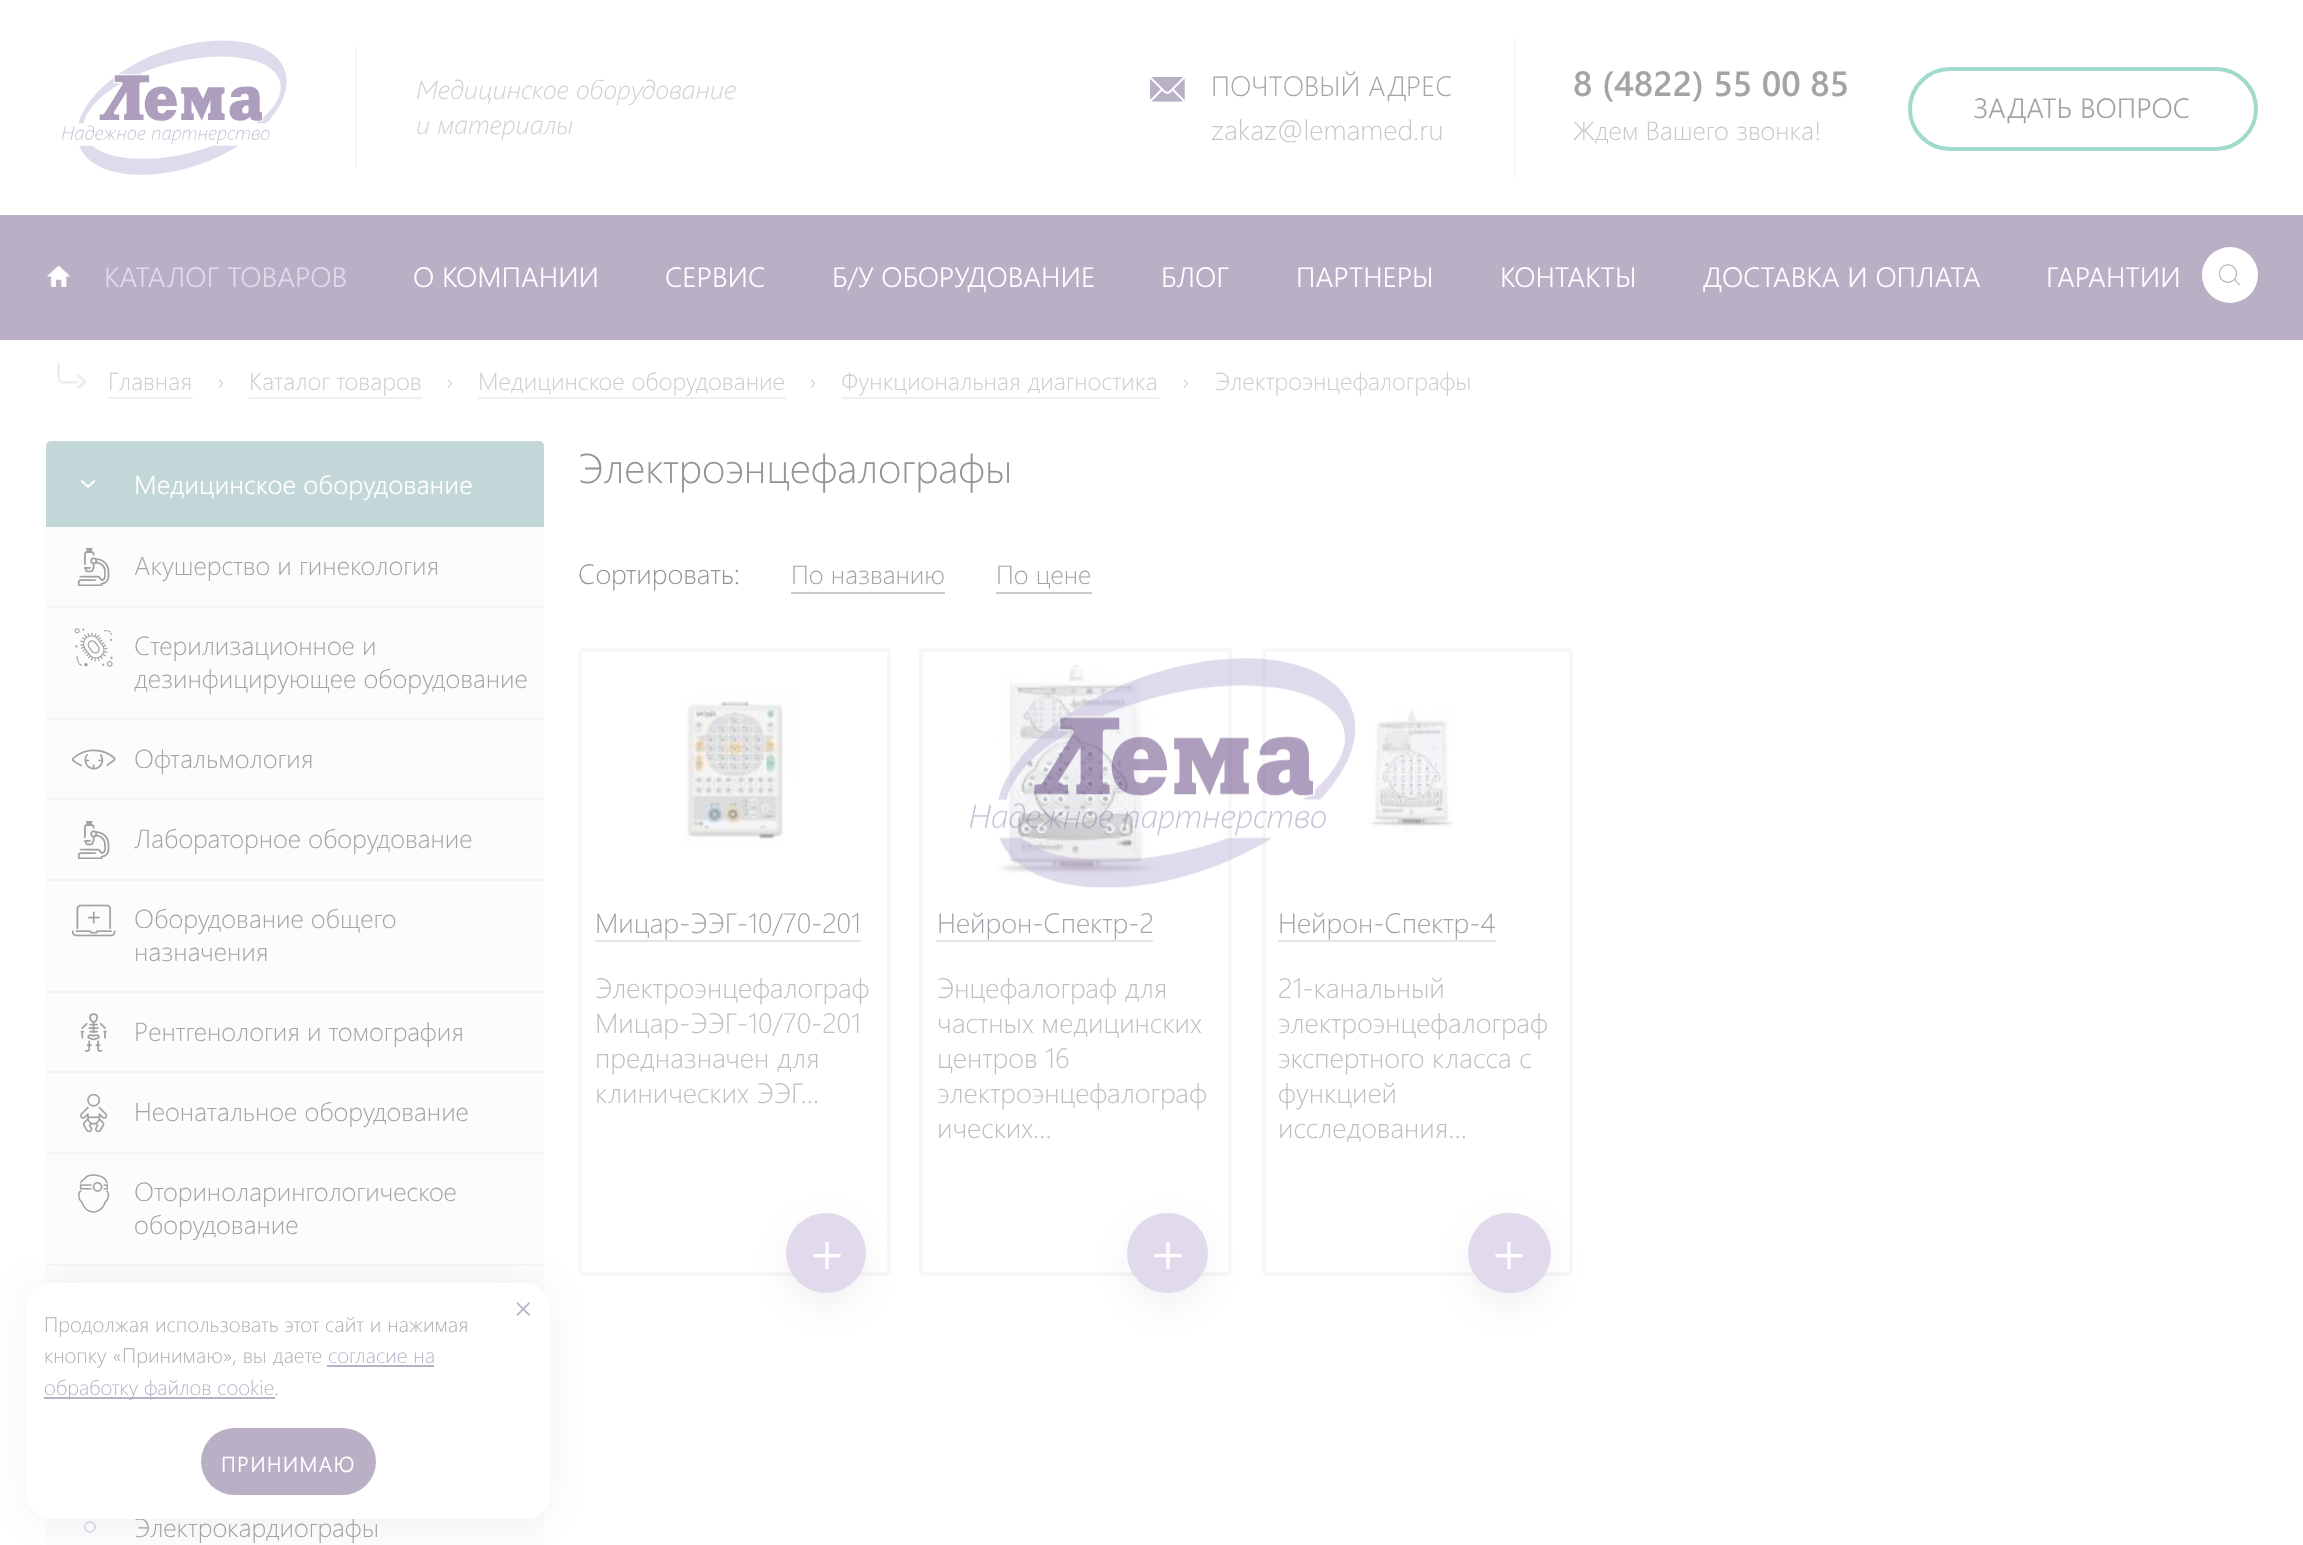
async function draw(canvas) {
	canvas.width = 2303;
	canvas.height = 1545;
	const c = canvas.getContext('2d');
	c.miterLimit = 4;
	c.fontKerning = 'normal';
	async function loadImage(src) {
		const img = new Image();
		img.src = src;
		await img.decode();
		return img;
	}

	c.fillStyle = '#fff';
	c.fillRect(0, 0, 2303, 1545);
	c.drawImage(await loadImage('img1.png'), 62, 40, 225, 135);
	c.fillStyle = '#f7f7f7';
	c.fillRect(355, 47, 2, 121);
	c.font = 'italic 300 26.25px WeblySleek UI';
	c.fillStyle = '#d1d0d4';
	c.fillText('Медицинское оборудование', 416, 99);
	c.fillText('и материалы', 416, 134);
	c.drawImage(await loadImage('img2.png'), 1150, 77, 35, 25);
	c.font = '300 28px WeblySleek UI';
	c.fillStyle = '#a4a4a4';
	c.fillText('ПОЧТОВЫЙ АДРЕС', 1211, 96);
	c.fillStyle = '#c6c8ca';
	c.fillText('zakaz@lemamed.ru', 1211, 140);
	c.fillStyle = '#f7f7f7';
	c.fillRect(1514, 39, 2, 138);
	c.font = '600 35px WeblySleek UI';
	c.fillStyle = '#a4a4a4';
	c.fillText('8 (4822) 55 00 85', 1573, 96);
	c.font = '300 26.25px WeblySleek UI';
	c.fillStyle = '#c6c8ca';
	c.fillText('Ждем Вашего звонка!', 1573, 140);
	c.beginPath();
	c.roundRect(1910, 69, 346, 80, 40);
	c.strokeStyle = '#a2d9cd';
	c.lineWidth = 4;
	c.stroke();
	c.font = '300 28px "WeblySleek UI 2"';
	c.fillStyle = '#a4a4a4';
	c.fillText('ЗАДАТЬ ВОПРОС', 1973, 118);
	c.fillStyle = '#b9b0c6';
	c.fillRect(0, 215, 2303, 125);
	c.drawImage(await loadImage('img3.png'), 47, 266, 23, 21);
	c.fillStyle = '#e0daec';
	c.fillText('КАТАЛОГ ТОВАРОВ', 104, 287);
	c.fillStyle = '#fff';
	for (const [text, x, y] of [
		['О КОМПАНИИ', 413, 287],
		['СЕРВИС', 665, 287],
		['Б/У ОБОРУДОВАНИЕ', 832, 287],
		['БЛОГ', 1161, 287],
		['ПАРТНЕРЫ', 1296, 287],
		['КОНТАКТЫ', 1500, 287],
		['ДОСТАВКА И ОПЛАТА', 1703, 287],
		['ГАРАНТИИ', 2046, 287],
	]) {
		c.fillText(text, x, y);
	}
	c.beginPath();
	c.arc(2230, 275, 28, 0, 2 * Math.PI);
	c.fill();
	c.drawImage(await loadImage('img4.png'), 2219, 264, 21, 22);
	c.drawImage(await loadImage('img5.png'), 57, 362, 29, 27);
	c.font = '300 24.5px WeblySleek UI';
	c.fillStyle = '#ccc';
	c.fillText('Главная', 108, 390);
	c.fillStyle = '#f0f0f0';
	c.fillRect(109, 397, 84, 2);
	c.fillStyle = '#ccc';
	c.fillText('›', 217, 390);
	c.fillText('Каталог товаров', 249, 390);
	c.fillStyle = '#f0f0f0';
	c.fillRect(249, 397, 173, 2);
	c.fillStyle = '#ccc';
	c.fillText('›', 446, 390);
	c.fillText('Медицинское оборудование', 478, 390);
	c.fillStyle = '#f0f0f0';
	c.fillRect(478, 397, 308, 2);
	c.fillStyle = '#ccc';
	c.fillText('›', 809, 390);
	c.fillText('Функциональная диагностика', 841, 390);
	c.fillStyle = '#f0f0f0';
	c.fillRect(842, 397, 317, 2);
	c.fillStyle = '#ccc';
	c.fillText('›', 1182, 390);
	c.fillText('Электроэнцефалографы', 1215, 390);
	c.fillStyle = '#fcfcfc';
	c.beginPath();
	c.roundRect(46, 441, 498, 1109, 5);
	c.fill();
	c.fillStyle = '#c3d7d9';
	c.beginPath();
	c.roundRect(46, 441, 498, 86, [5, 5, 0, 0]);
	c.fill();
	c.font = '300 42px "WeblySleek UI 2"';
	c.fillStyle = '#fff';
	c.save();
	c.translate(77, 477);
	c.rotate(90 * Math.PI / 180);
	c.fillText('›', 0, 0);
	c.restore();
	c.font = '300 26.25px "WeblySleek UI 2"';
	c.fillText('Медицинское оборудование', 134, 494);
	c.fillStyle = '#f4f4f4';
	c.fillRect(46, 606, 498, 2);
	c.drawImage(await loadImage('img6.png'), 77, 548, 33, 38);
	c.font = '300 26.25px WeblySleek UI';
	c.fillStyle = '#a4a4a4';
	c.fillText('Акушерство и гинекология', 134, 575);
	c.fillStyle = '#f4f4f4';
	c.fillRect(46, 718, 498, 2);
	c.drawImage(await loadImage('img7.png'), 74, 628, 39, 39);
	c.fillStyle = '#a4a4a4';
	c.fillText('Стерилизационное и', 134, 655);
	c.fillText('дезинфицирующее оборудование', 134, 688);
	c.fillStyle = '#f4f4f4';
	c.fillRect(46, 798, 498, 2);
	c.drawImage(await loadImage('img8.png'), 72, 749, 44, 21);
	c.fillStyle = '#a4a4a4';
	c.fillText('Офтальмология', 134, 768);
	c.fillStyle = '#f4f4f4';
	c.fillRect(46, 879, 498, 2);
	c.drawImage(await loadImage('img6.png'), 77, 821, 33, 38);
	c.fillStyle = '#a4a4a4';
	c.fillText('Лабораторное оборудование', 134, 848);
	c.fillStyle = '#f4f4f4';
	c.fillRect(46, 991, 498, 2);
	c.drawImage(await loadImage('img9.png'), 72, 904, 44, 33);
	c.fillStyle = '#a4a4a4';
	c.fillText('Оборудование общего', 134, 928);
	c.fillText('назначения', 134, 961);
	c.fillStyle = '#f4f4f4';
	c.fillRect(46, 1071, 498, 2);
	c.drawImage(await loadImage('img10.png'), 80, 1013, 27, 39);
	c.fillStyle = '#a4a4a4';
	c.fillText('Рентгенология и томография', 134, 1041);
	c.fillStyle = '#f4f4f4';
	c.fillRect(46, 1152, 498, 2);
	c.drawImage(await loadImage('img11.png'), 80, 1094, 28, 38);
	c.fillStyle = '#a4a4a4';
	c.fillText('Неонатальное оборудование', 134, 1121);
	c.fillStyle = '#f4f4f4';
	c.fillRect(46, 1264, 498, 2);
	c.drawImage(await loadImage('img12.png'), 78, 1174, 32, 39);
	c.fillStyle = '#a4a4a4';
	c.fillText('Оториноларингологическое', 134, 1201);
	c.fillText('оборудование', 134, 1234);
	c.beginPath();
	c.arc(90, 1527, 5, 0, 2 * Math.PI);
	c.strokeStyle = '#e0daec';
	c.lineWidth = 2;
	c.stroke();
	c.fillText('Электрокардиографы', 134, 1537);
	c.font = '300 41.5px WeblySleek UI';
	c.fillStyle = '#949494';
	c.fillText('Электроэнцефалографы', 578, 483);
	c.font = '300 28px WeblySleek UI';
	c.fillText('Сортировать:', 578, 584);
	c.font = '300 26.25px WeblySleek UI';
	c.fillStyle = '#a4a4a4';
	c.fillText('По названию', 791, 584);
	c.fillStyle = '#cbcbcb';
	c.fillRect(791, 592, 154, 2);
	c.fillStyle = '#a4a4a4';
	c.fillText('По цене', 996, 584);
	c.fillStyle = '#cbcbcb';
	c.fillRect(996, 592, 96, 2);
	c.beginPath();
	c.roundRect(580, 650, 309, 624, 3);
	c.strokeStyle = '#f7f7f7';
	c.lineWidth = 4;
	c.stroke();
	c.drawImage(await loadImage('img13.png'), 685, 693, 113, 154);
	c.font = '300 28px WeblySleek UI';
	c.fillStyle = '#a4a1aa';
	c.fillText('Мицар-ЭЭГ-10/70-201', 595, 933);
	c.fillStyle = '#e4e3e6';
	c.fillRect(595, 940, 266, 2);
	c.fillStyle = '#bfbfbf';
	for (const [text, x, y] of [
		['Электроэнцефалограф', 595, 998],
		['Мицар-ЭЭГ-10/70-201', 595, 1033],
		['предназначен для', 595, 1068],
		['клинических ЭЭГ...', 595, 1103],
	]) {
		c.fillText(text, x, y);
	}
	c.fillStyle = '#8080801c';
	c.filter = 'blur(16px)';
	c.beginPath();
	c.roundRect(786, 1225, 80, 81, 40);
	c.fill();
	c.filter = 'none';
	c.fillStyle = '#e0daec';
	c.beginPath();
	c.arc(826, 1253, 40, 0, 2 * Math.PI);
	c.fill();
	c.font = '300 60px "WeblySleek UI 2"';
	c.fillStyle = '#fff';
	c.fillText('+', 807, 1273);
	c.beginPath();
	c.roundRect(921, 650, 309, 624, 3);
	c.stroke();
	c.drawImage(await loadImage('img14.png'), 998, 665, 156, 210);
	c.font = '300 28px WeblySleek UI';
	c.fillStyle = '#a4a1aa';
	c.fillText('Нейрон-Спектр-2', 937, 933);
	c.fillStyle = '#e4e3e6';
	c.fillRect(936, 940, 217, 2);
	c.fillStyle = '#bfbfbf';
	for (const [text, x, y] of [
		['Энцефалограф для', 937, 998],
		['частных медицинских', 937, 1033],
		['центров 16', 937, 1068],
		['электроэнцефалограф', 937, 1103],
		['ических...', 937, 1138],
	]) {
		c.fillText(text, x, y);
	}
	c.fillStyle = '#8080801c';
	c.filter = 'blur(16px)';
	c.beginPath();
	c.roundRect(1127, 1225, 81, 81, 40.5);
	c.fill();
	c.filter = 'none';
	c.fillStyle = '#e0daec';
	c.beginPath();
	c.roundRect(1127, 1213, 81, 80, 40);
	c.fill();
	c.font = '300 60px "WeblySleek UI 2"';
	c.fillStyle = '#fff';
	c.fillText('+', 1148, 1273);
	c.beginPath();
	c.roundRect(1264, 650, 307, 624, 3);
	c.stroke();
	c.drawImage(await loadImage('img15.png'), 1368, 707, 87, 126);
	c.font = '300 28px WeblySleek UI';
	c.fillStyle = '#a4a1aa';
	c.fillText('Нейрон-Спектр-4', 1278, 933);
	c.fillStyle = '#e4e3e6';
	c.fillRect(1278, 940, 218, 2);
	c.fillStyle = '#bfbfbf';
	for (const [text, x, y] of [
		['21-канальный', 1278, 998],
		['электроэнцефалограф', 1278, 1033],
		['экспертного класса с', 1278, 1068],
		['функцией', 1278, 1103],
		['исследования...', 1278, 1138],
	]) {
		c.fillText(text, x, y);
	}
	c.fillStyle = '#8080801c';
	c.filter = 'blur(16px)';
	c.beginPath();
	c.roundRect(1468, 1225, 83, 81, 40.5);
	c.fill();
	c.filter = 'none';
	c.fillStyle = '#e0daec';
	c.beginPath();
	c.roundRect(1468, 1213, 83, 80, 40);
	c.fill();
	c.font = '300 60px "WeblySleek UI 2"';
	c.fillStyle = '#fff';
	c.fillText('+', 1489, 1273);
	c.fillStyle = '#8080801a';
	c.filter = 'blur(17.5px)';
	c.beginPath();
	c.roundRect(26, 1283, 525, 236, 26);
	c.fill();
	c.filter = 'none';
	c.fillStyle = '#fff';
	c.beginPath();
	c.roundRect(26, 1283, 525, 236, 26);
	c.fill();
	c.fillStyle = '#b9b0c6';
	c.beginPath();
	c.moveTo(517.5, 1302);
	c.lineTo(530, 1314.5);
	c.lineTo(529, 1316);
	c.lineTo(516.5, 1303.5);
	c.closePath();
	c.fill();
	c.beginPath();
	c.moveTo(516.5, 1314.5);
	c.lineTo(529, 1302);
	c.lineTo(530, 1303.5);
	c.lineTo(517.5, 1316);
	c.closePath();
	c.fill();
	c.font = '300 21px WeblySleek UI';
	c.fillStyle = '#b1afac';
	c.fillText('Продолжая использовать этот сайт и нажимая', 44, 1332);
	c.fillText('кнопку «Принимаю», вы даете', 44, 1363);
	c.fillStyle = '#b9b0c6';
	c.fillText('согласие на', 328, 1363);
	c.fillRect(327, 1365, 107, 2);
	c.fillRect(44, 1397, 231, 2);
	c.fillText('обработку файлов cookie', 44, 1395);
	c.fillStyle = '#b1afac';
	c.fillText('.', 274, 1395);
	c.fillStyle = '#b9b0c6';
	c.beginPath();
	c.roundRect(201, 1428, 175, 67, 33.5);
	c.fill();
	c.letterSpacing = '1.75px';
	c.font = 'bold 21px WeblySleek UI';
	c.fillStyle = '#fff';
	c.fillText('ПРИНИМАЮ', 221, 1472);
	c.drawImage(await loadImage('img16.png'), 970, 658, 386, 230);
}

draw(document.querySelector('canvas'));
